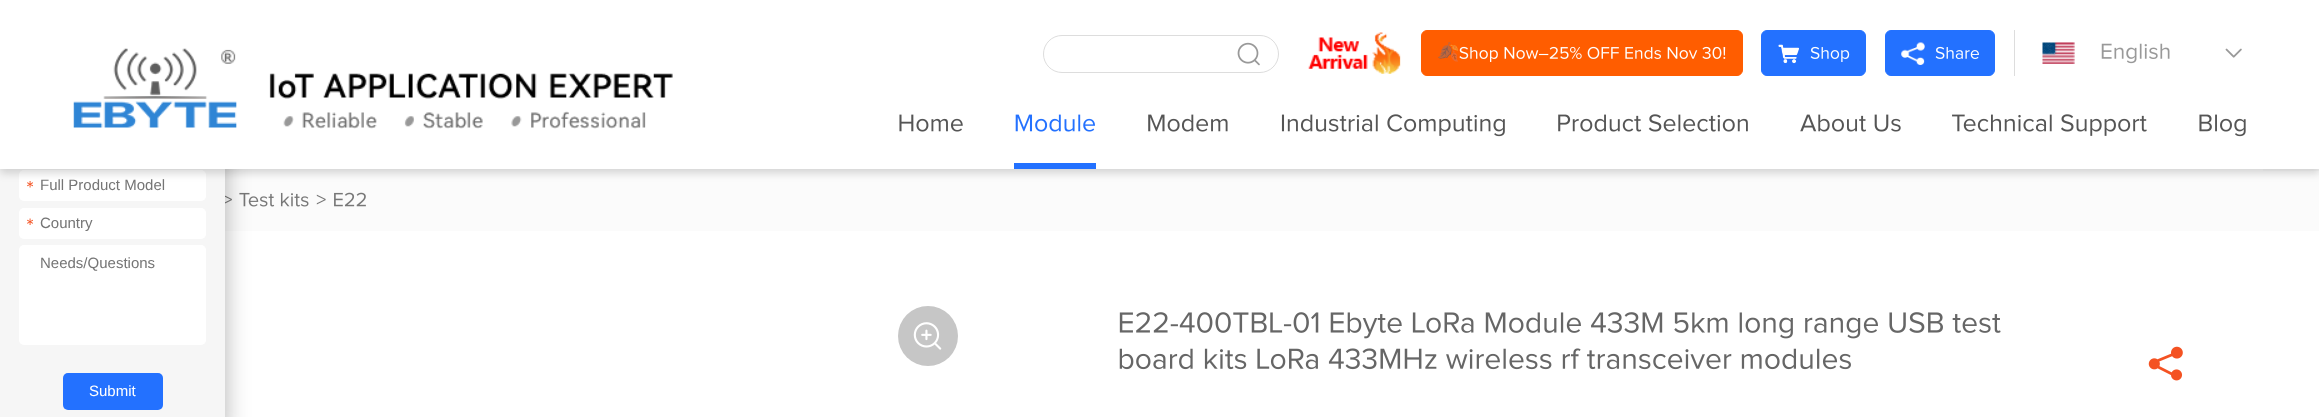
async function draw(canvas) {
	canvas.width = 2319;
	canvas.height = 417;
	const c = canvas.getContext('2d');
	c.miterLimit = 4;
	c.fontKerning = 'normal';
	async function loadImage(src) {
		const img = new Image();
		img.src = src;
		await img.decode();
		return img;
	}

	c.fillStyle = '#fff';
	c.fillRect(0, 0, 2319, 417);
	c.fillStyle = '#fbfbfb';
	c.fillRect(225, 169, 2094, 62);
	c.fillStyle = '#f6f6f6';
	c.fillRect(2263, 169, 56, 2);
	c.drawImage(await loadImage('img22.png'), 225, 195, 7, 9);
	c.drawImage(await loadImage('img23.png'), 239, 192, 70, 15);
	c.fillStyle = '#0000004d';
	c.filter = 'blur(12.5px)';
	c.beginPath();
	c.rect(0, -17, 225, 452);
	c.fill();
	c.filter = 'none';
	c.fillStyle = '#f6f6f6';
	c.fillRect(0, 169, 225, 248);
	c.fillStyle = '#fff';
	c.beginPath();
	c.roundRect(19, 170, 187, 31, 5);
	c.fill();
	c.drawImage(await loadImage('img20.png'), 27, 181, 6, 7);
	c.fillStyle = '#00000029';
	c.filter = 'blur(4px)';
	c.beginPath();
	c.rect(0, 4, 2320, 169);
	c.fill();
	c.filter = 'none';
	c.fillStyle = '#fff';
	c.fillRect(0, 0, 2319, 169);
	c.drawImage(await loadImage('img1.png'), 73, 48, 600, 81);
	c.beginPath();
	c.roundRect(1043.5, 35.5, 235, 37, 18.5);
	c.strokeStyle = '#ddd';
	c.stroke();
	c.drawImage(await loadImage('img2.png'), 1237, 42, 23, 24);
	c.fillStyle = '#ddd';
	c.fillRect(2014, 30, 1, 46);
	c.drawImage(await loadImage('img3.png'), 1308, 32, 93, 42);
	c.fillStyle = '#ff5d00';
	c.beginPath();
	c.roundRect(1421.5, 30.5, 321, 45, 5.5);
	c.fill();
	c.strokeStyle = '#ff5d00';
	c.stroke();
	c.font = 'bold 18px Noto Color Emoji';
	c.fillStyle = '#fff';
	c.fillText('🍂', 1437, 58);
	c.drawImage(await loadImage('img4.png'), 1459, 46, 267, 16);
	c.fillStyle = '#2371ff';
	c.beginPath();
	c.roundRect(1761.5, 30.5, 104, 45, 5.5);
	c.fill();
	c.strokeStyle = '#2371ff';
	c.stroke();
	c.drawImage(await loadImage('img5.png'), 1778, 44, 21, 20);
	c.drawImage(await loadImage('img6.png'), 1810, 46, 40, 16);
	c.beginPath();
	c.roundRect(1885.5, 30.5, 109, 45, 5.5);
	c.fill();
	c.stroke();
	c.drawImage(await loadImage('img7.png'), 1901, 42, 24, 23);
	c.drawImage(await loadImage('img8.png'), 1935, 46, 44, 13);
	c.drawImage(await loadImage('img9.png'), 2042, 42, 33, 22);
	c.drawImage(await loadImage('img10.png'), 2101, 43, 69, 21);
	c.drawImage(await loadImage('img11.png'), 2225, 48, 17, 10);
	c.drawImage(await loadImage('img12.png'), 899, 114, 64, 18);
	c.drawImage(await loadImage('img13.png'), 1015, 114, 80, 18);
	c.fillRect(1014, 163, 82, 6);
	c.drawImage(await loadImage('img14.png'), 1148, 114, 80, 18);
	c.drawImage(await loadImage('img15.png'), 1281, 114, 224, 23);
	c.drawImage(await loadImage('img16.png'), 1558, 114, 190, 18);
	c.drawImage(await loadImage('img17.png'), 1800, 114, 101, 18);
	c.drawImage(await loadImage('img18.png'), 1952, 114, 195, 22);
	c.drawImage(await loadImage('img19.png'), 2199, 114, 47, 23);
	c.font = '15px Liberation Sans';
	c.fillStyle = '#757575';
	c.fillText('Full Product Model', 40, 190);
	c.fillStyle = '#fff';
	c.beginPath();
	c.roundRect(19, 208, 187, 31, 5);
	c.fill();
	c.drawImage(await loadImage('img21.png'), 27, 218, 6, 7);
	c.fillStyle = '#757575';
	c.fillText('Country', 40, 228);
	c.fillStyle = '#fff';
	c.beginPath();
	c.roundRect(19, 245, 187, 100, 5);
	c.fill();
	c.fillStyle = '#757575';
	c.fillText('Needs/Questions', 40, 268);
	c.fillStyle = '#2371ff';
	c.beginPath();
	c.roundRect(63, 373, 100, 37, 5);
	c.fill();
	c.fillStyle = '#fff';
	c.fillText('Submit', 89, 396);
	c.drawImage(await loadImage('img24.png'), 316, 194, 10, 11);
	c.drawImage(await loadImage('img25.png'), 334, 192, 32, 15);
	c.fillStyle = '#c6c6c6';
	c.beginPath();
	c.arc(928, 336, 30, 0, 2 * Math.PI);
	c.fill();
	c.drawImage(await loadImage('img26.png'), 913, 322, 29, 28);
	c.drawImage(await loadImage('img27.png'), 1119, 312, 882, 27);
	c.drawImage(await loadImage('img28.png'), 1119, 348, 732, 22);
	c.drawImage(await loadImage('img29.png'), 2148, 346, 35, 35);
}

draw(document.querySelector('canvas'));
